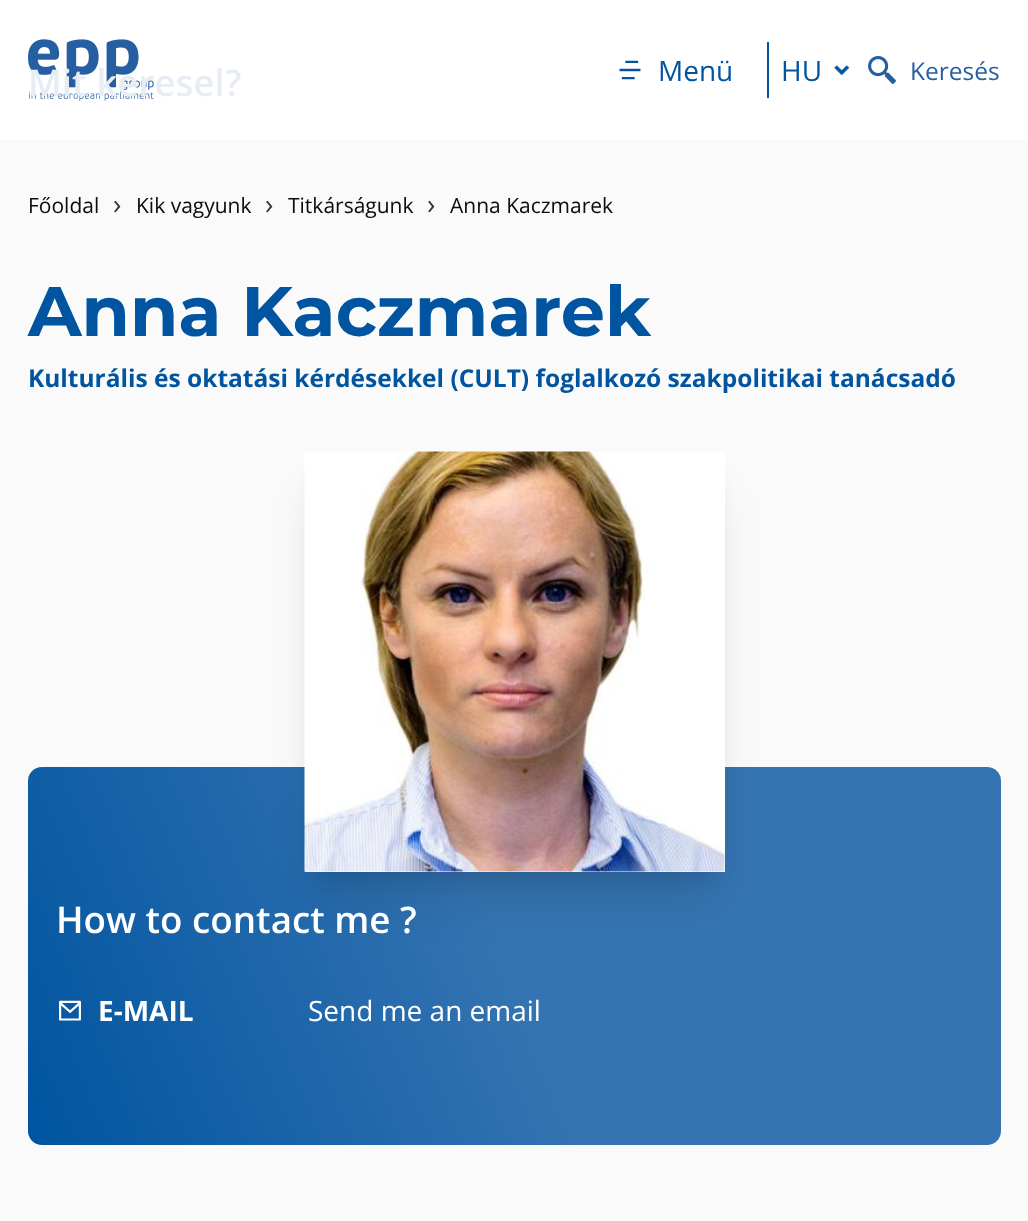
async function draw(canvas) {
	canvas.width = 1028;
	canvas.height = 1221;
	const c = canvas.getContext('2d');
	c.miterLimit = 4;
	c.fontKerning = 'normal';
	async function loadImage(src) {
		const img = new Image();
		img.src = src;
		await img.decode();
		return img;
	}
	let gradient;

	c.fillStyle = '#fafafa';
	c.fillRect(0, 0, 1028, 1221);
	c.fillStyle = '#fff';
	c.fillRect(0, 0, 1028, 140);
	c.drawImage(await loadImage('img1.png'), 28, 39, 126, 62);
	c.drawImage(await loadImage('img2.png'), 619, 60, 22, 20);
	c.font = '28px Open Sans';
	c.fillStyle = '#0155a0';
	c.fillText('Menü', 658, 81);
	c.drawImage(await loadImage('img3.png'), 868, 56, 28, 28);
	c.font = '24.5px Open Sans';
	c.fillStyle = '#265ea2';
	c.fillText('Keresés', 910, 80);
	c.font = '600 36.75px Open Sans';
	c.fillStyle = '#e6edf4';
	c.fillText('Mit keresel?', 28, 96);
	c.fillStyle = '#0155a0';
	c.fillRect(767, 42, 2, 56);
	c.font = '28px Open Sans';
	c.fillText('HU', 781, 81);
	c.drawImage(await loadImage('img4.png'), 833, 65, 17, 11);
	c.font = '21px Open Sans';
	c.fillStyle = '#0d0c0c';
	c.fillText('Főoldal', 28, 213);
	c.font = '28px Open Sans';
	c.fillStyle = '#333';
	c.fillText('›', 113, 214);
	c.font = '21px Open Sans';
	c.fillStyle = '#0d0c0c';
	c.fillText('Kik vagyunk', 136, 213);
	c.font = '28px Open Sans';
	c.fillStyle = '#333';
	c.fillText('›', 265, 214);
	c.font = '21px Open Sans';
	c.fillStyle = '#0d0c0c';
	c.fillText('Titkárságunk', 288, 213);
	c.font = '28px Open Sans';
	c.fillStyle = '#333';
	c.fillText('›', 427, 214);
	c.font = '21px Open Sans';
	c.fillStyle = '#0d0c0c';
	c.fillText('Anna Kaczmarek', 450, 213);
	c.font = 'bold 70px Montserrat';
	c.fillStyle = '#0155a0';
	c.fillText('Anna Kaczmarek', 28, 336);
	c.font = 'bold 24.5px Open Sans';
	c.fillText('Kulturális és oktatási kérdésekkel (CULT) foglalkozó szakpolitikai tanácsadó', 28, 387);
	gradient = c.createLinearGradient(995, 753, 34, 1158);
	gradient.addColorStop(0.5, '#3574b2');
	gradient.addColorStop(0.99, '#0155a0');
	c.fillStyle = gradient;
	c.beginPath();
	c.roundRect(28, 767, 973, 378, 14);
	c.fill();
	c.fillStyle = '#0000001a';
	c.filter = 'blur(22px)';
	c.beginPath();
	c.rect(313, 495, 403, 403);
	c.fill();
	c.filter = 'none';
	c.filter = 'blur(9px)';
	c.beginPath();
	c.rect(315, 476, 399, 399);
	c.fill();
	c.filter = 'none';
	c.fillStyle = '#fff';
	c.fillRect(305, 452, 420, 420);
	c.drawImage(await loadImage('img5.png'), 304, 451, 421, 421);
	c.font = '600 36.75px Open Sans';
	c.fillText('How to contact me ?', 56, 933);
	c.drawImage(await loadImage('img6.png'), 59, 1000, 22, 21);
	c.font = 'bold 28px Open Sans';
	c.fillText('E-MAIL', 98, 1021);
	c.font = '28px Open Sans';
	c.fillText('Send me an email', 308, 1021);
}

draw(document.querySelector('canvas'));
